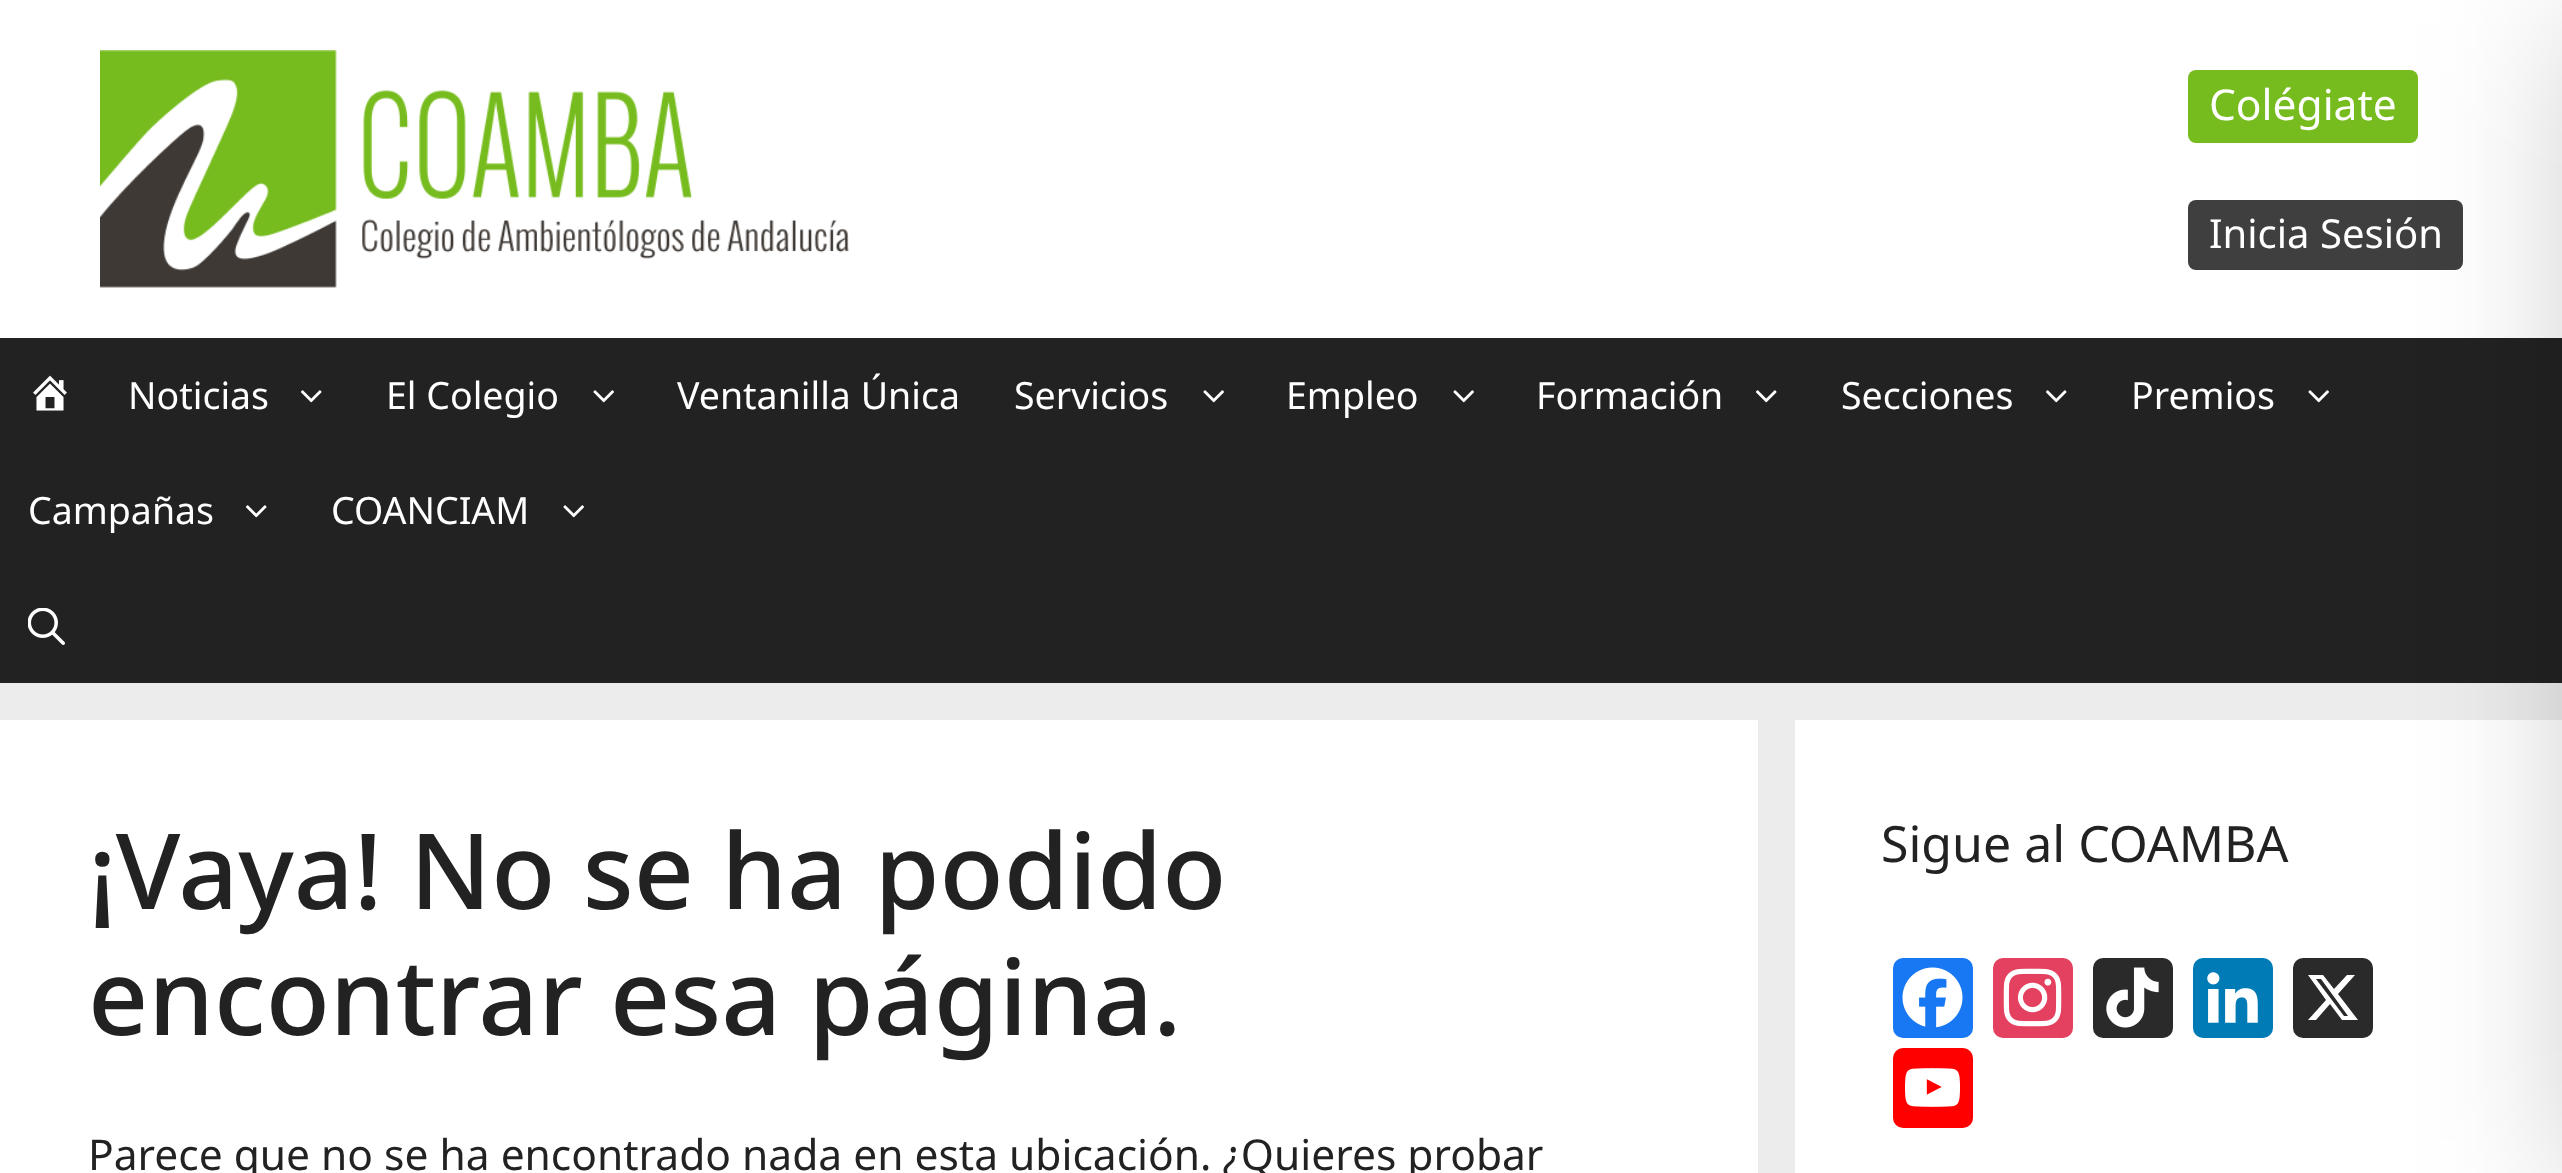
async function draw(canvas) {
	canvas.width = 2562;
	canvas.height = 1173;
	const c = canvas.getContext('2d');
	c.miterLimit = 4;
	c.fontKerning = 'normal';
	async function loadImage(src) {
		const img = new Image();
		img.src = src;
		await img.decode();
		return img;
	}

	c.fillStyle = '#ececec';
	c.fillRect(0, 0, 2562, 1173);
	c.fillStyle = '#fff';
	c.fillRect(0, 0, 2562, 338);
	c.drawImage(await loadImage('img1.png'), 100, 50, 749, 238);
	c.fillStyle = '#77bc1f';
	c.beginPath();
	c.roundRect(2188, 70, 230, 73, 8);
	c.fill();
	c.font = '42.5px Noto Sans';
	c.fillStyle = '#fff';
	c.fillText('Colégiate', 2209, 120);
	c.fillStyle = '#3f3f3f';
	c.beginPath();
	c.roundRect(2188, 200, 275, 70, 8);
	c.fill();
	c.font = '40px Noto Sans';
	c.fillStyle = '#fff';
	c.fillText('Inicia Sesión', 2209, 248);
	c.fillStyle = '#222';
	c.fillRect(0, 338, 2562, 345);
	c.fillStyle = '#fff';
	c.fillRect(1795, 720, 767, 453);
	c.fillStyle = '#2a2a2a';
	c.beginPath();
	c.roundRect(2293, 958, 80, 80, 10);
	c.fill();
	c.fillStyle = '#fff';
	c.beginPath();
	c.moveTo(2347, 975);
	c.lineTo(2355, 975);
	c.lineTo(2338, 994);
	c.lineTo(2358, 1020);
	c.lineTo(2342, 1020);
	c.lineTo(2330, 1004);
	c.lineTo(2316, 1020);
	c.lineTo(2308, 1020);
	c.lineTo(2326, 1000);
	c.lineTo(2308, 975);
	c.lineTo(2323, 975);
	c.lineTo(2334, 989);
	c.closePath();
	c.moveTo(2344, 1016);
	c.lineTo(2348, 1016);
	c.lineTo(2321, 979);
	c.lineTo(2316, 979);
	c.closePath();
	c.fill();
	c.fillStyle = '#00000033';
	c.filter = 'blur(75px)';
	c.beginPath();
	c.rect(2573, 25, 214, 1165);
	c.fill();
	c.filter = 'none';
	c.drawImage(await loadImage('img2.png'), 33, 375, 34, 36);
	c.font = '37.5px Noto Sans';
	c.fillStyle = '#fff';
	c.fillText('Noticias', 128, 409);
	c.drawImage(await loadImage('img3.png'), 300, 390, 22, 13);
	c.fillText('El Colegio', 386, 409);
	c.drawImage(await loadImage('img4.png'), 593, 390, 21, 13);
	c.fillText('Ventanilla Única', 677, 409);
	c.fillText('Servicios', 1014, 409);
	c.drawImage(await loadImage('img4.png'), 1203, 390, 21, 13);
	c.fillText('Empleo', 1286, 409);
	c.drawImage(await loadImage('img4.png'), 1453, 390, 21, 13);
	c.fillText('Formación', 1536, 409);
	c.drawImage(await loadImage('img3.png'), 1755, 390, 22, 13);
	c.fillText('Secciones', 1841, 409);
	c.drawImage(await loadImage('img3.png'), 2045, 390, 22, 13);
	c.fillText('Premios', 2131, 409);
	c.drawImage(await loadImage('img4.png'), 2308, 390, 21, 13);
	c.fillText('Campañas', 28, 524);
	c.drawImage(await loadImage('img3.png'), 245, 505, 22, 13);
	c.fillText('COANCIAM', 331, 524);
	c.drawImage(await loadImage('img4.png'), 563, 505, 21, 13);
	c.drawImage(await loadImage('img5.png'), 28, 608, 37, 37);
	c.fillRect(0, 720, 1758, 453);
	c.font = '500 105px Noto Sans';
	c.fillStyle = '#222';
	c.fillText('¡Vaya! No se ha podido', 88, 909);
	c.fillText('encontrar esa página.', 88, 1035);
	c.font = '42.5px Noto Sans';
	c.fillText('Parece que no se ha encontrado nada en esta ubicación. ¿Quieres probar', 88, 1170);
	c.font = '50px Noto Sans';
	c.fillText('Sigue al COAMBA', 1881, 862);
	c.fillStyle = '#1877f2';
	c.beginPath();
	c.roundRect(1893, 958, 80, 80, 10);
	c.fill();
	c.drawImage(await loadImage('img6.png'), 1902, 967, 61, 61);
	c.fillStyle = '#e4405f';
	c.beginPath();
	c.roundRect(1993, 958, 80, 80, 10);
	c.fill();
	c.drawImage(await loadImage('img7.png'), 2003, 968, 59, 59);
	c.fillStyle = '#2a2a2a';
	c.beginPath();
	c.roundRect(2093, 958, 80, 80, 10);
	c.fill();
	c.drawImage(await loadImage('img8.png'), 2106, 967, 53, 61);
	c.fillStyle = '#007bb5';
	c.beginPath();
	c.roundRect(2193, 958, 80, 80, 10);
	c.fill();
	c.drawImage(await loadImage('img9.png'), 2207, 972, 51, 51);
	c.fillStyle = '#f00';
	c.beginPath();
	c.roundRect(1893, 1048, 80, 80, 10);
	c.fill();
	c.drawImage(await loadImage('img10.png'), 1905, 1068, 55, 39);
}

draw(document.querySelector('canvas'));
